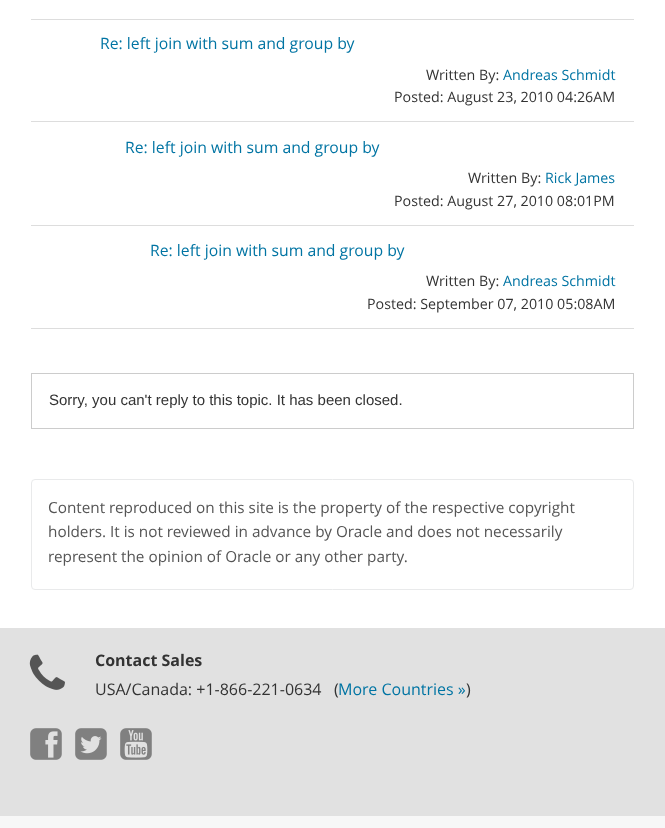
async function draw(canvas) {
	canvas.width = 665;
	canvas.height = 828;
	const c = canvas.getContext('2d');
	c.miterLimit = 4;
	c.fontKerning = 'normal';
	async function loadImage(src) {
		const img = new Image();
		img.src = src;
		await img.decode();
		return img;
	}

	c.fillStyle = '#fff';
	c.fillRect(0, 0, 665, 828);
	c.fillStyle = '#ddd';
	c.fillRect(31, 328, 603, 1);
	c.fillRect(31, 19, 603, 1);
	c.font = '15.75px Open Sans';
	c.fillStyle = '#0074a3';
	c.fillText('Re: left join with sum and group by', 100, 49);
	c.font = '14.25px Open Sans';
	c.fillStyle = '#333';
	c.fillText('Written By:', 426, 80);
	c.fillStyle = '#0074a3';
	c.fillText('Andreas Schmidt', 503, 80);
	c.fillStyle = '#333';
	c.fillText('Posted: August 23, 2010 04:26AM', 394, 102);
	c.fillStyle = '#ddd';
	c.fillRect(31, 121, 603, 1);
	c.font = '15.75px Open Sans';
	c.fillStyle = '#0074a3';
	c.fillText('Re: left join with sum and group by', 125, 153);
	c.font = '14.25px Open Sans';
	c.fillStyle = '#333';
	c.fillText('Written By:', 468, 183);
	c.fillStyle = '#0074a3';
	c.fillText('Rick James', 545, 183);
	c.fillStyle = '#333';
	c.fillText('Posted: August 27, 2010 08:01PM', 394, 206);
	c.fillStyle = '#ddd';
	c.fillRect(31, 225, 603, 1);
	c.font = '15.75px Open Sans';
	c.fillStyle = '#0074a3';
	c.fillText('Re: left join with sum and group by', 150, 256);
	c.font = '14.25px Open Sans';
	c.fillStyle = '#333';
	c.fillText('Written By:', 426, 286);
	c.fillStyle = '#0074a3';
	c.fillText('Andreas Schmidt', 503, 286);
	c.fillStyle = '#333';
	c.fillText('Posted: September 07, 2010 05:08AM', 367, 309);
	c.strokeStyle = '#ccc';
	c.strokeRect(31.5, 373.5, 602, 55);
	c.font = '15px Liberation Sans';
	c.fillText('Sorry, you can\'t reply to this topic. It has been closed.', 49, 405);
	c.beginPath();
	c.roundRect(31.5, 479.5, 602, 110, 3.5);
	c.strokeStyle = '#e9eaeb';
	c.stroke();
	c.font = '15.3px Open Sans';
	c.fillStyle = '#555';
	for (const [text, x, y] of [
		['Content reproduced on this site is the property of the respective copyright', 48, 513],
		['holders. It is not reviewed in advance by Oracle and does not necessarily', 48, 537],
		['represent the opinion of Oracle or any other party.', 48, 562],
	]) {
		c.fillText(text, x, y);
	}
	c.fillStyle = '#e1e1e1';
	c.fillRect(0, 628, 665, 188);
	c.drawImage(await loadImage('img1.png'), 29, 654, 36, 36);
	c.font = 'bold 16px Open Sans';
	c.fillStyle = '#333';
	c.fillText('Contact Sales', 95, 666);
	c.font = '16px Open Sans';
	c.fillText('USA/Canada: +1-866-221-0634', 95, 695);
	c.fillText('(', 334, 695);
	c.fillStyle = '#0074a3';
	c.fillText('More Countries »', 338, 695);
	c.fillStyle = '#333';
	c.fillText(')', 466, 695);
	c.drawImage(await loadImage('img2.png'), 30, 728, 32, 32);
	c.drawImage(await loadImage('img3.png'), 75, 728, 32, 32);
	c.drawImage(await loadImage('img4.png'), 120, 728, 32, 32);
	c.fillStyle = '#f7f7f7';
	c.fillRect(0, 816, 665, 12);
}

draw(document.querySelector('canvas'));
